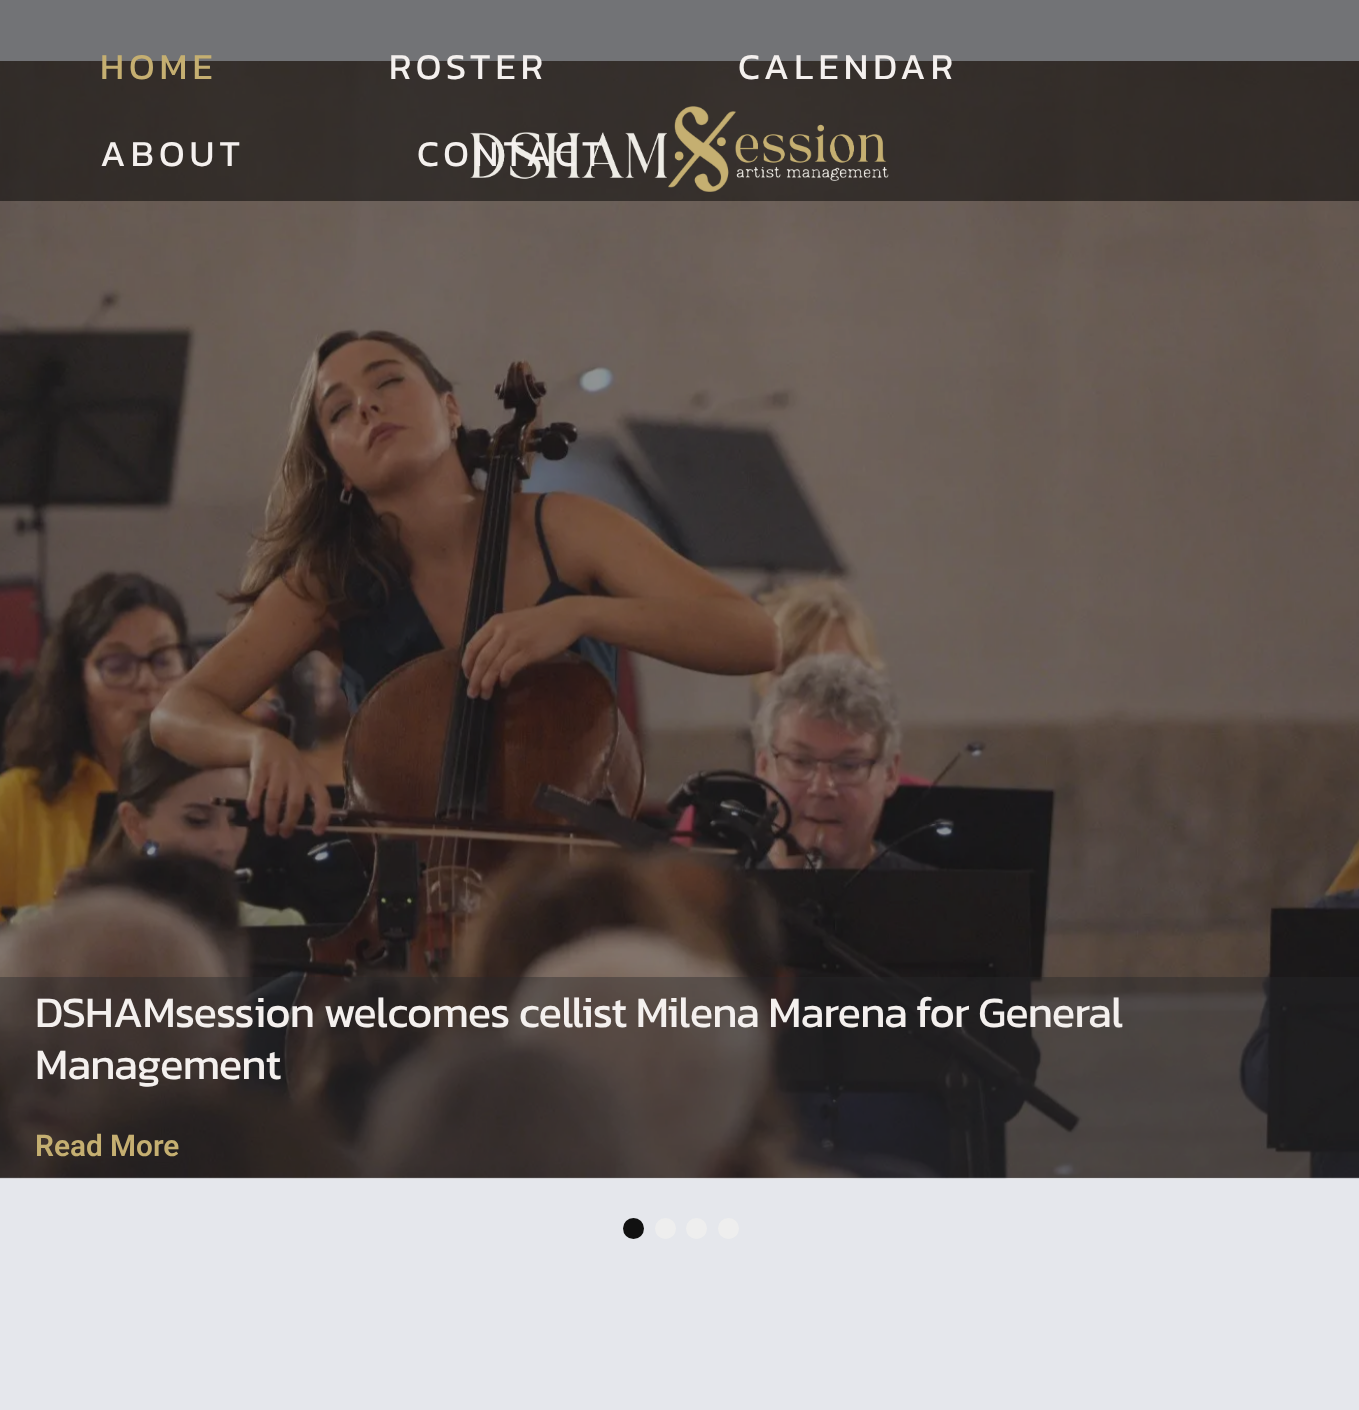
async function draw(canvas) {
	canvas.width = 1359;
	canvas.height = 1410;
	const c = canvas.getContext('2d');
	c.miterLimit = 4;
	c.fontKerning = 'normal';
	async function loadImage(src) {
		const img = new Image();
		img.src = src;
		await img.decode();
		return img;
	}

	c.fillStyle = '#e5e7ec';
	c.fillRect(0, 0, 1359, 1410);
	c.fillStyle = '#86878b';
	c.fillRect(0, 1177, 1359, 1);
	c.drawImage(await loadImage('img2.png'), 0, 61, 1359, 1118);
	c.fillStyle = '#00000080';
	c.fillRect(0, 0, 1359, 201);
	c.letterSpacing = '5px';
	c.font = '36.75px Kanit';
	c.fillStyle = '#c5af71';
	c.fillText('HOME', 100, 79);
	c.fillStyle = '#f4f0ee';
	for (const [text, x, y] of [
		['ROSTER', 389, 79],
		['CALENDAR', 738, 79],
		['ABOUT', 100, 166],
	]) {
		c.fillText(text, x, y);
	}
	c.drawImage(await loadImage('img1.png'), 470, 106, 419, 86);
	c.fillText('CONTACT', 417, 166);
	c.fillStyle = '#26262969';
	c.fillRect(0, 977, 1359, 201);
	c.letterSpacing = '-0.88px';
	c.font = '43.75px Kanit';
	c.fillStyle = '#f4f0ee';
	c.fillText('DSHAMsession welcomes cellist Milena Marena for General', 35, 1027);
	c.fillText('Management', 35, 1079);
	c.letterSpacing = '0px';
	c.font = '600 29.75px Roboto';
	c.fillStyle = '#c5af71';
	c.fillText('Read More', 35, 1156);
	c.fillStyle = '#111';
	c.beginPath();
	c.arc(633.5, 1228.5, 10.5, 0, 2 * Math.PI);
	c.fill();
	c.fillStyle = '#eee';
	c.beginPath();
	c.arc(665.5, 1228.5, 10.5, 0, 2 * Math.PI);
	c.fill();
	c.beginPath();
	c.arc(696.5, 1228.5, 10.5, 0, 2 * Math.PI);
	c.fill();
	c.beginPath();
	c.arc(728.5, 1228.5, 10.5, 0, 2 * Math.PI);
	c.fill();
}

draw(document.querySelector('canvas'));
